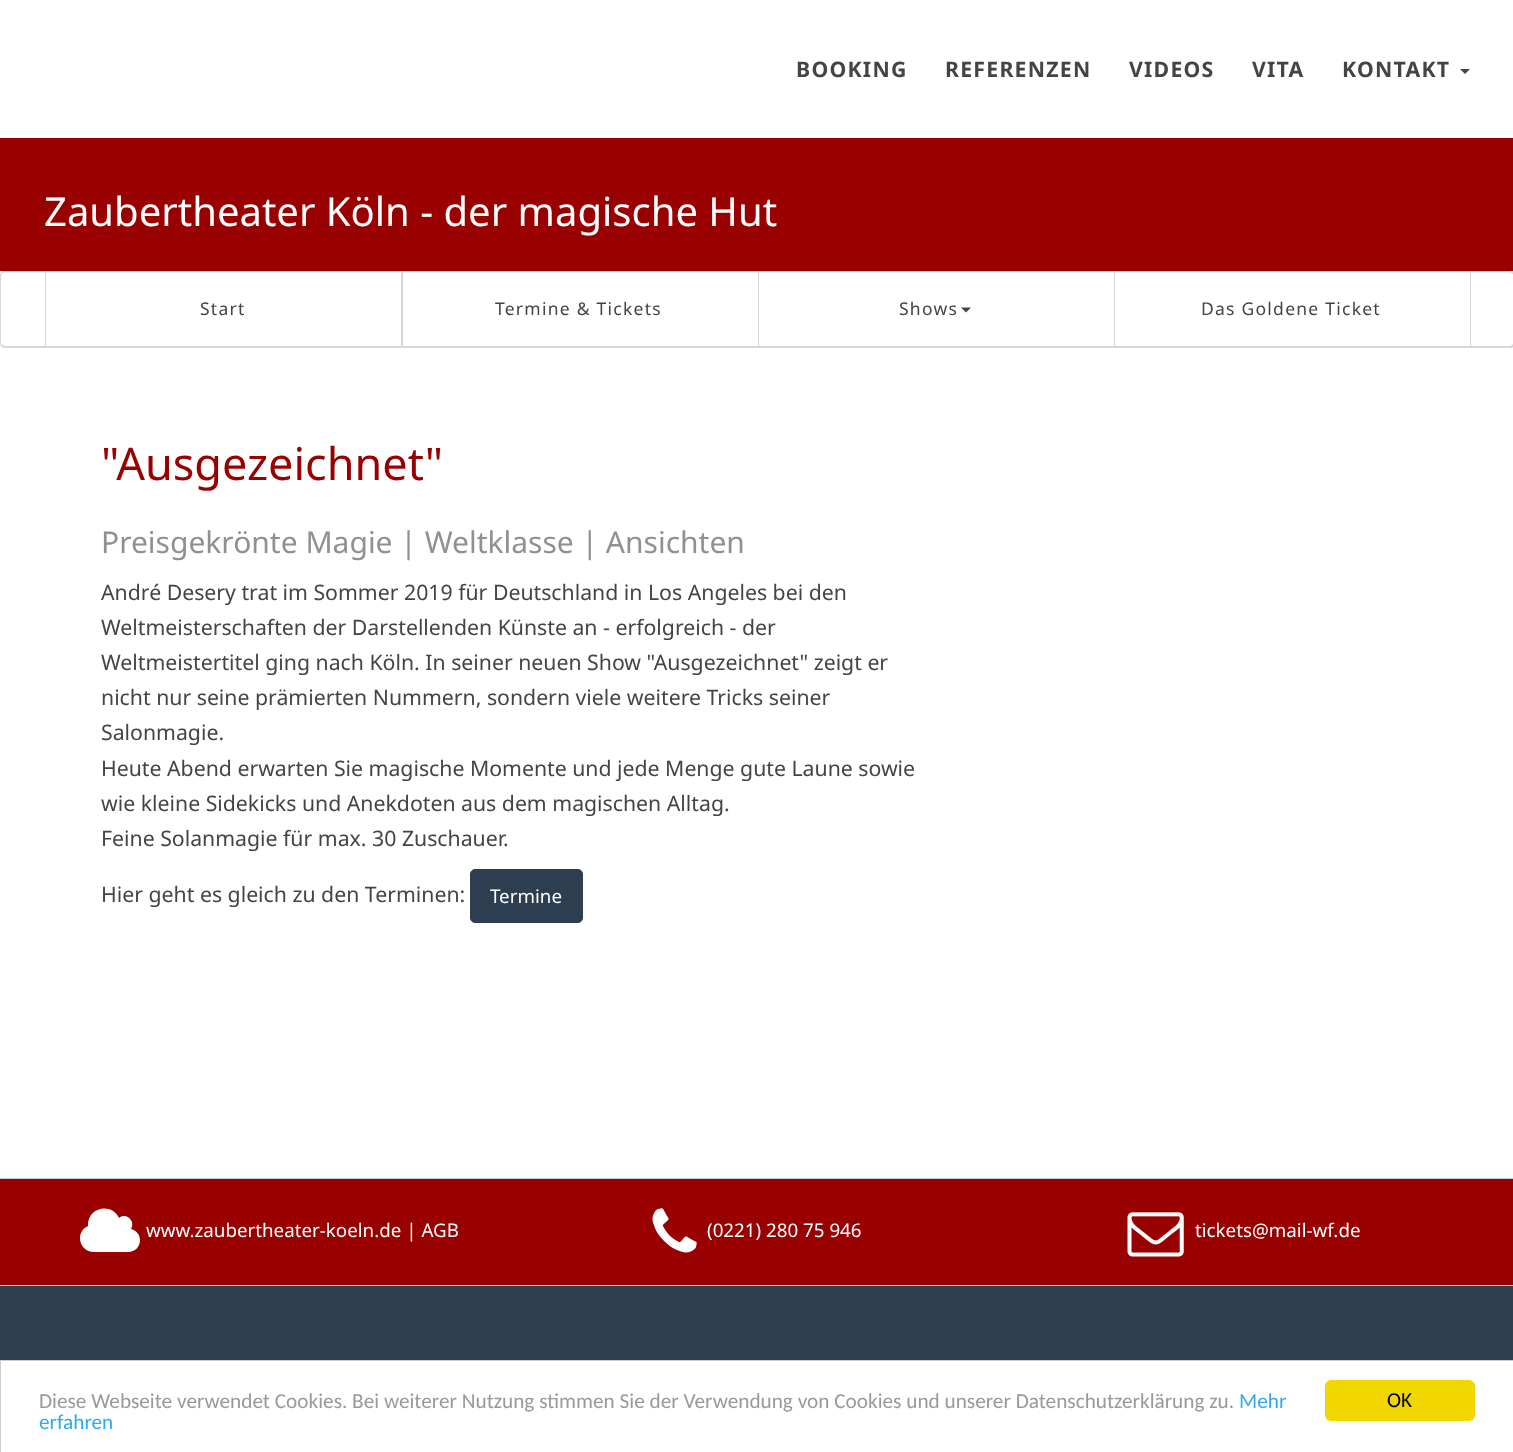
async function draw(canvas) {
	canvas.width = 1513;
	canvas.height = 1452;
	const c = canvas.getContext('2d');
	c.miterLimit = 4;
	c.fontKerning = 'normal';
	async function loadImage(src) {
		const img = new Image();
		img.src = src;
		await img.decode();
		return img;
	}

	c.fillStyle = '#fff';
	c.fillRect(0, 0, 1513, 1452);
	c.letterSpacing = '1.25px';
	c.font = 'bold 21.25px Noto Sans';
	c.fillStyle = '#444';
	for (const [text, x, y] of [
		['BOOKING', 796, 77],
		['REFERENZEN', 945, 77],
		['VIDEOS', 1129, 77],
		['VITA', 1252, 77],
		['KONTAKT', 1342, 77],
	]) {
		c.fillText(text, x, y);
	}
	c.beginPath();
	c.moveTo(1460, 69);
	c.lineTo(1470, 69);
	c.lineTo(1465, 74);
	c.closePath();
	c.fill();
	c.fillStyle = '#900';
	c.fillRect(0, 138, 1513, 133);
	c.letterSpacing = '0px';
	c.font = '40px Noto Sans';
	c.fillStyle = '#fff';
	c.fillText('Zaubertheater Köln - der magische Hut', 44, 226);
	c.fillStyle = '#d7d7d7';
	c.beginPath();
	c.moveTo(1, 345);
	c.bezierCurveTo(2, 347, 4, 348, 6, 348);
	c.lineTo(1510, 348);
	c.bezierCurveTo(1513, 348, 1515, 346, 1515, 343);
	c.lineTo(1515, 278);
	c.bezierCurveTo(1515, 277, 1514, 275, 1513, 274);
	c.lineTo(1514, 276);
	c.lineTo(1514, 341);
	c.bezierCurveTo(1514, 344, 1512, 346, 1509, 346);
	c.lineTo(5, 346);
	c.bezierCurveTo(4, 346, 2, 346, 1, 345);
	c.closePath();
	c.fill();
	c.beginPath();
	c.moveTo(0, 341);
	c.bezierCurveTo(0, 345, 1, 348, 5, 348);
	c.lineTo(1509, 348);
	c.bezierCurveTo(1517, 348, 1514, 335, 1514, 332);
	c.lineTo(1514, 276);
	c.lineTo(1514, 341);
	c.bezierCurveTo(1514, 344, 1512, 346, 1509, 346);
	c.lineTo(5, 346);
	c.bezierCurveTo(2, 346, 0, 344, 0, 341);
	c.closePath();
	c.fill();
	c.beginPath();
	c.moveTo(6, 271);
	c.lineTo(4, 271);
	c.lineTo(1509, 271);
	c.bezierCurveTo(1512, 271, 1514, 273, 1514, 276);
	c.lineTo(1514, 341);
	c.bezierCurveTo(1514, 343, 1512, 345, 1510, 346);
	c.bezierCurveTo(1513, 346, 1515, 344, 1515, 341);
	c.lineTo(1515, 276);
	c.bezierCurveTo(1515, 273, 1513, 271, 1510, 271);
	c.closePath();
	c.fill();
	c.fillStyle = '#fff';
	c.beginPath();
	c.roundRect(0, 271, 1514, 75, 5);
	c.fill();
	c.fillStyle = '#d7d7d7';
	c.beginPath();
	c.moveTo(5, 272);
	c.lineTo(1509, 272);
	c.bezierCurveTo(1512, 272, 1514, 275, 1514, 278);
	c.bezierCurveTo(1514, 275, 1513, 271, 1509, 271);
	c.lineTo(5, 271);
	c.bezierCurveTo(1, 271, 0, 275, 0, 278);
	c.bezierCurveTo(0, 275, 2, 272, 5, 272);
	c.closePath();
	c.fill();
	c.beginPath();
	c.moveTo(5, 271);
	c.bezierCurveTo(2, 271, 0, 273, 0, 276);
	c.lineTo(0, 341);
	c.bezierCurveTo(0, 344, 2, 346, 5, 346);
	c.lineTo(6, 346);
	c.bezierCurveTo(3, 346, 1, 344, 1, 341);
	c.lineTo(1, 276);
	c.bezierCurveTo(1, 273, 3, 271, 6, 271);
	c.closePath();
	c.fill();
	c.beginPath();
	c.moveTo(46, 346);
	c.lineTo(46, 348);
	c.lineTo(403, 348);
	c.lineTo(403, 273);
	c.lineTo(401, 273);
	c.lineTo(401, 346);
	c.closePath();
	c.fill();
	c.beginPath();
	c.moveTo(46, 271);
	c.lineTo(401, 271);
	c.lineTo(401, 346);
	c.lineTo(403, 346);
	c.lineTo(403, 271);
	c.closePath();
	c.fill();
	c.fillRect(45, 271, 1, 75);
	c.letterSpacing = '1.25px';
	c.font = '17.5px Noto Sans';
	c.fillStyle = '#444';
	c.fillText('Start', 200, 315);
	c.fillStyle = '#d7d7d7';
	c.beginPath();
	c.moveTo(403, 346);
	c.lineTo(403, 348);
	c.lineTo(759, 348);
	c.lineTo(759, 273);
	c.lineTo(758, 273);
	c.lineTo(758, 346);
	c.closePath();
	c.fill();
	c.beginPath();
	c.moveTo(403, 271);
	c.lineTo(758, 271);
	c.lineTo(758, 346);
	c.lineTo(759, 346);
	c.lineTo(759, 271);
	c.closePath();
	c.fill();
	c.fillStyle = '#444';
	c.fillText('Termine & Tickets', 495, 315);
	c.fillStyle = '#d7d7d7';
	c.beginPath();
	c.moveTo(759, 346);
	c.lineTo(759, 348);
	c.lineTo(1115, 348);
	c.lineTo(1115, 273);
	c.lineTo(1114, 273);
	c.lineTo(1114, 346);
	c.closePath();
	c.fill();
	c.beginPath();
	c.moveTo(759, 271);
	c.lineTo(1114, 271);
	c.lineTo(1114, 346);
	c.lineTo(1115, 346);
	c.lineTo(1115, 271);
	c.closePath();
	c.fill();
	c.fillStyle = '#444';
	c.fillText('Shows', 899, 315);
	c.beginPath();
	c.moveTo(961, 307.5);
	c.lineTo(971, 307.5);
	c.lineTo(966, 312.5);
	c.closePath();
	c.fill();
	c.fillStyle = '#d7d7d7';
	c.beginPath();
	c.moveTo(1115, 346);
	c.lineTo(1115, 348);
	c.lineTo(1471, 348);
	c.lineTo(1471, 273);
	c.lineTo(1470, 273);
	c.lineTo(1470, 346);
	c.closePath();
	c.fill();
	c.beginPath();
	c.moveTo(1115, 271);
	c.lineTo(1470, 271);
	c.lineTo(1470, 346);
	c.lineTo(1471, 346);
	c.lineTo(1471, 271);
	c.closePath();
	c.fill();
	c.fillStyle = '#444';
	c.fillText('Das Goldene Ticket', 1201, 315);
	c.fillStyle = '#ccc';
	c.fillRect(0, 1178, 1513, 1);
	c.letterSpacing = '0px';
	c.font = '45px Noto Sans';
	c.fillStyle = '#900';
	c.fillText('"Ausgezeichnet"', 101, 480);
	c.font = '30px Noto Sans';
	c.fillStyle = '#909090';
	c.fillText('Preisgekrönte Magie | Weltklasse | Ansichten', 101, 553);
	c.font = '21.25px Noto Sans';
	c.fillStyle = '#444';
	for (const [text, x, y] of [
		['André Desery trat im Sommer 2019 für Deutschland in Los Angeles bei den', 101, 600],
		['Weltmeisterschaften der Darstellenden Künste an - erfolgreich - der', 101, 635],
		['Weltmeistertitel ging nach Köln. In seiner neuen Show "Ausgezeichnet" zeigt er', 101, 670],
		['nicht nur seine prämierten Nummern, sondern viele weitere Tricks seiner', 101, 705],
		['Salonmagie.', 101, 740],
		['Heute Abend erwarten Sie magische Momente und jede Menge gute Laune sowie', 101, 776],
		['wie kleine Sidekicks und Anekdoten aus dem magischen Alltag.', 101, 811],
		['Feine Solanmagie für max. 30 Zuschauer.', 101, 846],
		['Hier geht es gleich zu den Terminen:', 101, 902],
	]) {
		c.fillText(text, x, y);
	}
	c.fillStyle = '#2c3e50';
	c.beginPath();
	c.roundRect(470.5, 869.5, 112, 53, 4.5);
	c.fill();
	c.strokeStyle = '#2c3e50';
	c.stroke();
	c.font = '18.75px Noto Sans';
	c.fillStyle = '#fff';
	c.fillText('Termine', 490, 903);
	c.fillStyle = '#900';
	c.fillRect(0, 1179, 1513, 106);
	c.fillStyle = '#ccc';
	c.fillRect(0, 1285, 1513, 1);
	c.fillStyle = '#fff';
	c.beginPath();
	c.moveTo(140, 1240);
	c.bezierCurveTo(140, 1235, 136, 1230, 131, 1229);
	c.bezierCurveTo(136, 1221, 126, 1212, 119, 1218);
	c.bezierCurveTo(112, 1202, 87, 1207, 88, 1226);
	c.bezierCurveTo(83, 1228, 80, 1233, 80, 1238);
	c.bezierCurveTo(80, 1246, 86, 1252, 94, 1252);
	c.lineTo(128, 1252);
	c.bezierCurveTo(135, 1252, 140, 1247, 140, 1240);
	c.closePath();
	c.fill();
	c.fillText('www.zaubertheater-koeln.de | AGB', 146, 1237);
	c.drawImage(await loadImage('img1.png'), 652, 1208, 45, 45);
	c.fillText('(0221) 280 75 946', 707, 1237);
	c.drawImage(await loadImage('img2.png'), 1127, 1212, 57, 45);
	c.fillText('tickets@mail-wf.de', 1195, 1237);
	c.fillStyle = '#2c3e50';
	c.fillRect(0, 1286, 1513, 74);
	c.strokeStyle = '#ccc';
	c.strokeRect(0.5, 1360.5, 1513, 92);
	c.font = '21.25px Carlito';
	c.fillStyle = '#999';
	c.fillText('Diese Webseite verwendet Cookies. Bei weiterer Nutzung stimmen Sie der Verwendung von Cookies und unserer Datenschutzerklärung zu.', 39, 1408);
	c.fillStyle = '#31a8f0';
	c.fillText('Mehr', 1239, 1408);
	c.fillText('erfahren', 39, 1429);
	c.fillStyle = '#f1d600';
	c.beginPath();
	c.roundRect(1325, 1380, 150, 41, 6);
	c.fill();
	c.fillStyle = '#000';
	c.fillText('OK', 1387, 1407);
}

draw(document.querySelector('canvas'));
